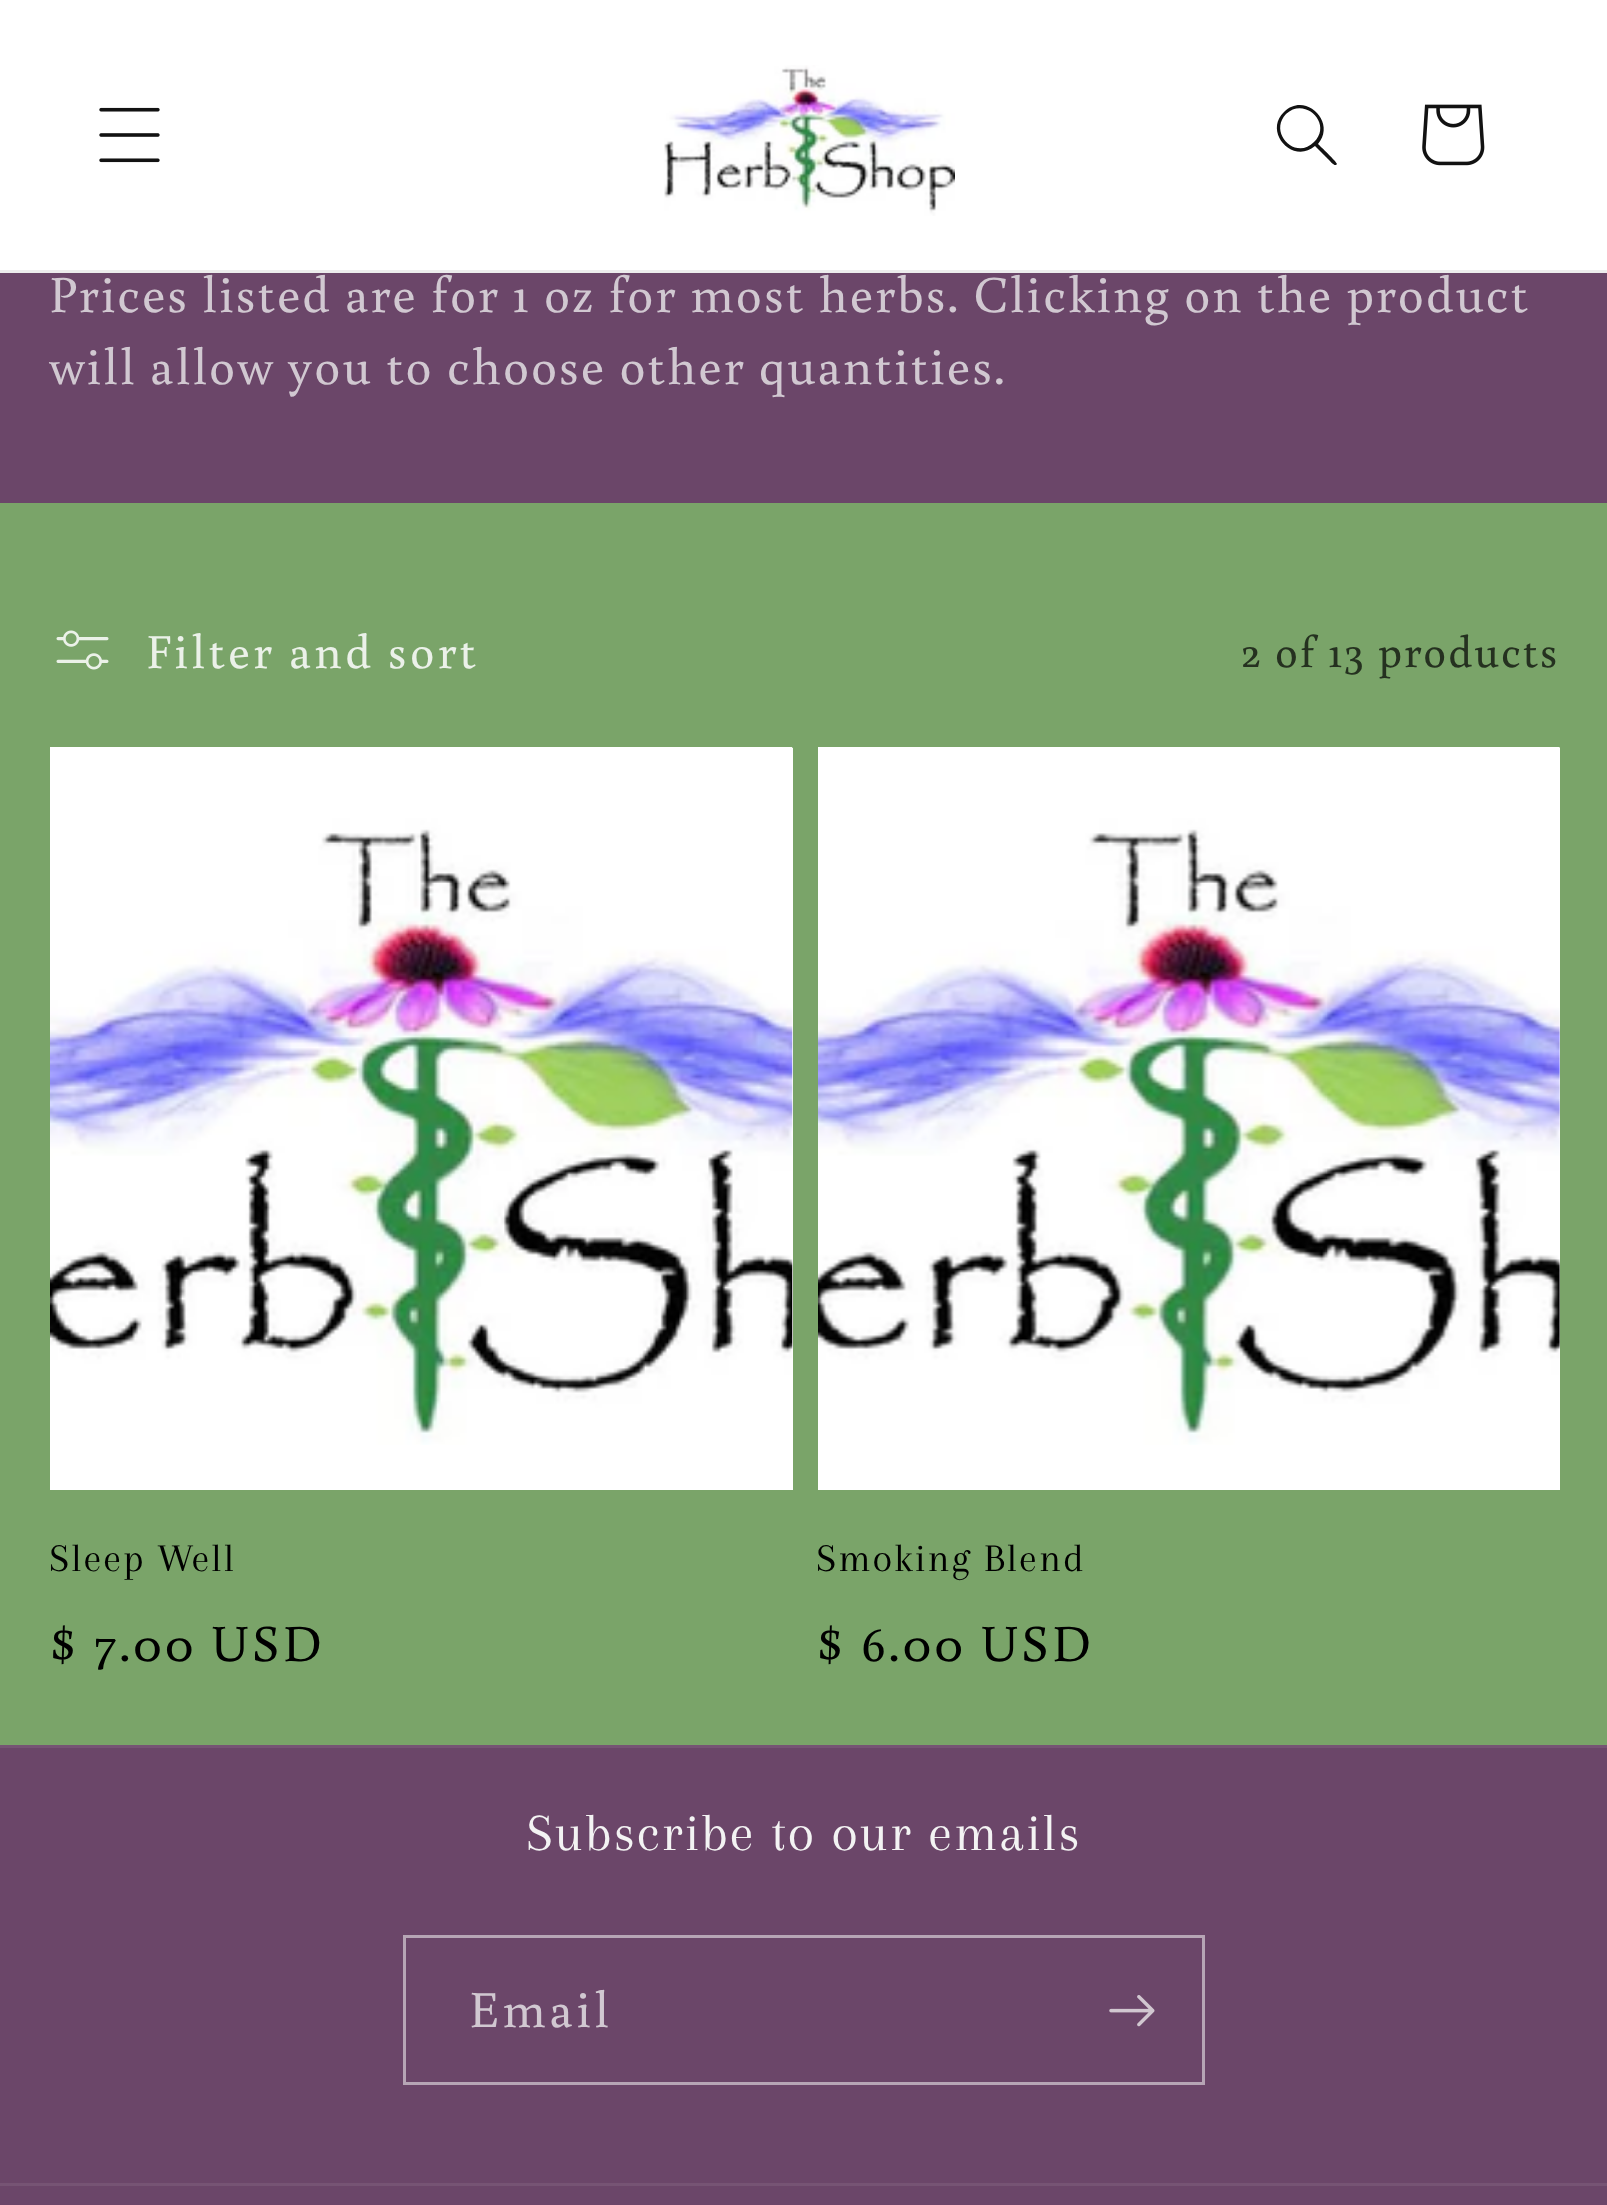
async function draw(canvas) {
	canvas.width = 1607;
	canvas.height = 2205;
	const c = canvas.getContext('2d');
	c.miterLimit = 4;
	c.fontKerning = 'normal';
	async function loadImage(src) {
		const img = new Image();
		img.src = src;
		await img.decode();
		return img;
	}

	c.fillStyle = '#6b4669';
	c.fillRect(0, 0, 1607, 2205);
	c.fillStyle = '#fff';
	c.fillRect(0, 0, 1607, 270);
	c.fillStyle = '#ececec';
	c.fillRect(0, 270, 1607, 3);
	c.drawImage(await loadImage('img1.png'), 99, 107, 61, 56);
	c.drawImage(await loadImage('img2.png'), 664, 65, 291, 151);
	c.fillStyle = '#121212';
	c.beginPath();
	c.moveTo(1314, 142);
	c.bezierCurveTo(1296, 161, 1268, 133, 1286, 114);
	c.bezierCurveTo(1305, 96, 1333, 124, 1314, 142);
	c.closePath();
	c.moveTo(1315, 146);
	c.bezierCurveTo(1293, 165, 1263, 132, 1284, 112);
	c.bezierCurveTo(1305, 91, 1337, 122, 1318, 144);
	c.bezierCurveTo(1320, 146, 1337, 162, 1337, 164);
	c.lineTo(1336, 165);
	c.bezierCurveTo(1334, 166, 1329, 160, 1328, 159);
	c.closePath();
	c.fill('evenodd');
	c.drawImage(await loadImage('img3.png'), 1422, 104, 63, 62);
	c.letterSpacing = '1.95px';
	c.font = '52px Buenard';
	c.fillStyle = '#d1c8d1';
	c.fillText('Prices listed are for 1 oz for most herbs. Clicking on the product', 49, 312);
	c.fillText('will allow you to choose other quantities.', 49, 384);
	c.fillStyle = '#7aa469';
	c.fillRect(0, 503, 1607, 1242);
	c.drawImage(await loadImage('img4.png'), 56, 630, 53, 40);
	c.letterSpacing = '3.25px';
	c.font = '48.75px Buenard';
	c.fillStyle = '#ebf1e9';
	c.fillText('Filter and sort', 146, 668);
	c.letterSpacing = '1.95px';
	c.font = '45.5px Buenard';
	c.fillStyle = '#253120';
	c.fillText('2 of 13 products', 1241, 667);
	c.fillStyle = '#fff';
	c.fillRect(50, 748, 743, 742);
	c.drawImage(await loadImage('img5.png'), 50, 747, 743, 698);
	c.letterSpacing = '2px';
	c.font = '40.5px Arapey';
	c.fillStyle = '#000';
	c.fillText('Sleep Well', 49, 1571);
	c.letterSpacing = '3.25px';
	c.font = '52px Buenard';
	c.fillText('$ 7.00 USD', 49, 1661);
	c.fillStyle = '#fff';
	c.fillRect(818, 748, 742, 742);
	c.drawImage(await loadImage('img6.png'), 818, 747, 742, 698);
	c.letterSpacing = '2px';
	c.font = '40.5px Arapey';
	c.fillStyle = '#000';
	c.fillText('Smoking Blend', 816, 1571);
	c.letterSpacing = '3.25px';
	c.font = '52px Buenard';
	c.fillText('$ 6.00 USD', 816, 1661);
	c.fillStyle = '#765474';
	c.fillRect(0, 1745, 1607, 3);
	c.letterSpacing = '2px';
	c.font = '54px Arapey';
	c.fillStyle = '#f3f3f3';
	c.fillText('Subscribe to our emails', 526, 1850);
	c.strokeStyle = '#b6a5b5';
	c.lineWidth = 3;
	c.strokeRect(404.5, 1936.5, 799, 147);
	c.letterSpacing = '3.25px';
	c.font = '52px Buenard';
	c.fillStyle = '#d1c8d1';
	c.fillText('Email', 469, 2027);
	c.drawImage(await loadImage('img7.png'), 1109, 1995, 46, 32);
	c.fillStyle = '#765474';
	c.fillRect(0, 2183, 1607, 3);
}

draw(document.querySelector('canvas'));
